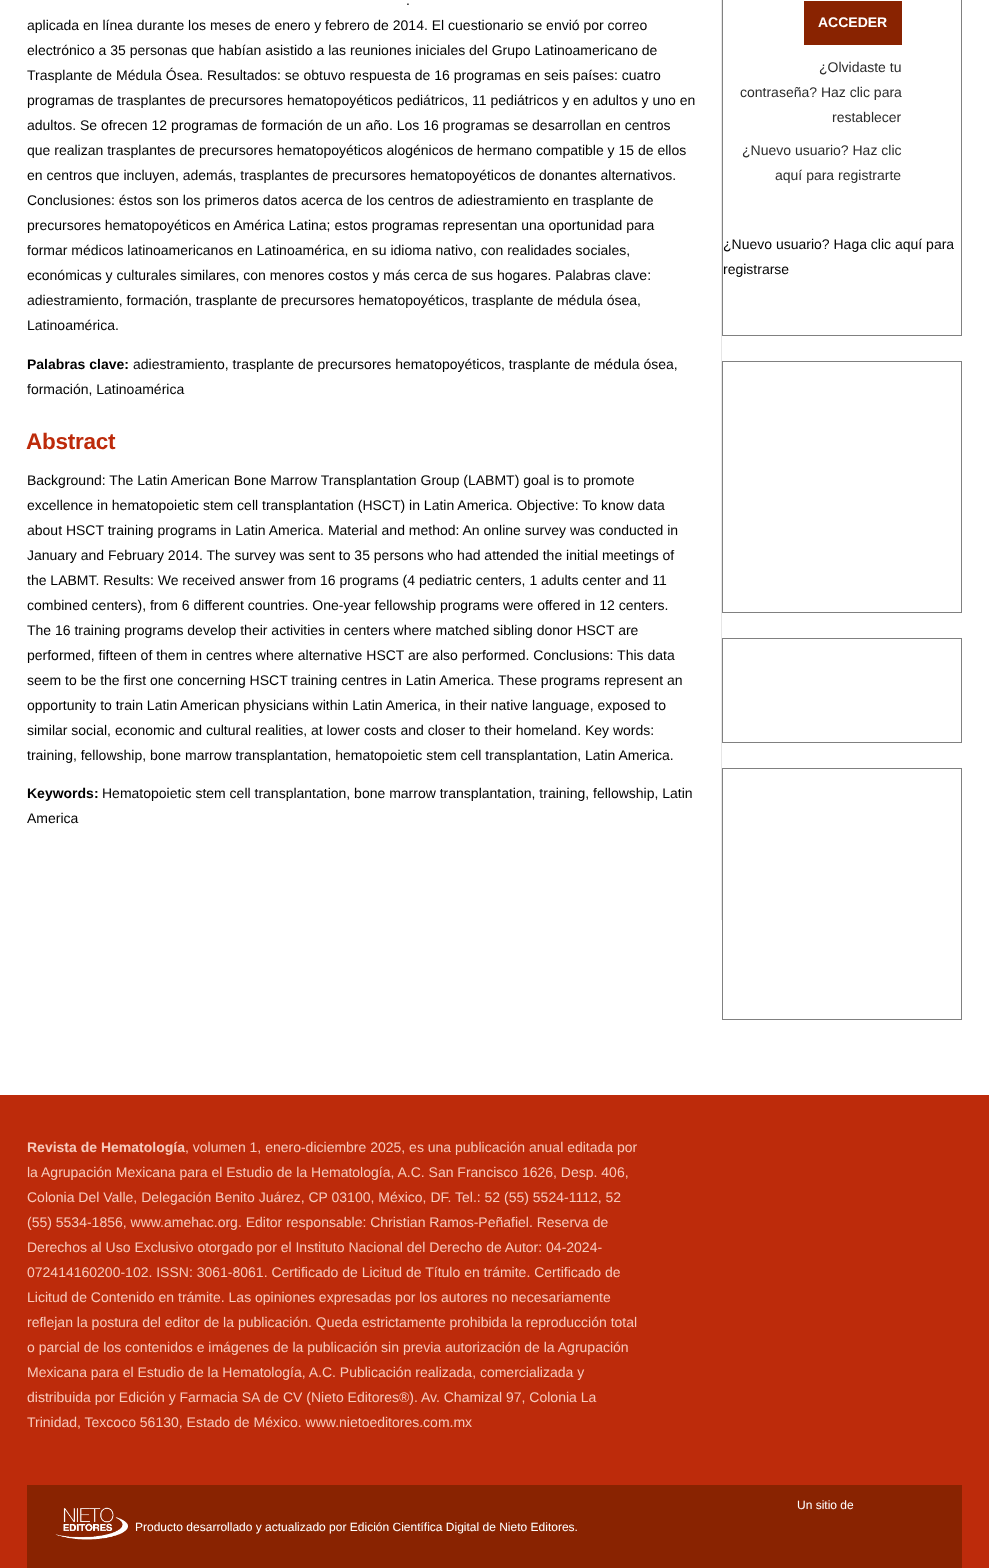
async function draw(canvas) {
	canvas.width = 989;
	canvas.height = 1568;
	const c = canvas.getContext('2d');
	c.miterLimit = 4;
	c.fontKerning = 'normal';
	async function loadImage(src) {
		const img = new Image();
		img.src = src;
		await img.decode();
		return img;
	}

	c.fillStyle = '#fff';
	c.fillRect(0, 0, 989, 1568);
	c.fillStyle = '#e6e6e6';
	c.fillRect(721, 0, 1, 920);
	c.font = '14px Liberation Sans';
	c.fillStyle = '#000';
	for (const [text, x, y] of [
		['.', 406, 5],
		['aplicada en línea durante los meses de enero y febrero de 2014. El cuestionario se envió por correo', 27, 30],
		['electrónico a 35 personas que habían asistido a las reuniones iniciales del Grupo Latinoamericano de', 27, 55],
		['Trasplante de Médula Ósea. Resultados: se obtuvo respuesta de 16 programas en seis países: cuatro', 27, 80],
		['programas de trasplantes de precursores hematopoyéticos pediátricos, 11 pediátricos y en adultos y uno en', 27, 105],
		['adultos. Se ofrecen 12 programas de formación de un año. Los 16 programas se desarrollan en centros', 27, 130],
		['que realizan trasplantes de precursores hematopoyéticos alogénicos de hermano compatible y 15 de ellos', 27, 155],
		['en centros que incluyen, además, trasplantes de precursores hematopoyéticos de donantes alternativos.', 27, 180],
		['Conclusiones: éstos son los primeros datos acerca de los centros de adiestramiento en trasplante de', 27, 205],
		['precursores hematopoyéticos en América Latina; estos programas representan una oportunidad para', 27, 230],
		['formar médicos latinoamericanos en Latinoamérica, en su idioma nativo, con realidades sociales,', 27, 255],
		['económicas y culturales similares, con menores costos y más cerca de sus hogares. Palabras clave:', 27, 280],
		['adiestramiento, formación, trasplante de precursores hematopoyéticos, trasplante de médula ósea,', 27, 305],
		['Latinoamérica.', 27, 330],
	]) {
		c.fillText(text, x, y);
	}
	c.font = 'bold 14px Liberation Sans';
	c.fillText('Palabras clave:', 27, 369);
	c.font = '14px Liberation Sans';
	c.fillText('adiestramiento, trasplante de precursores hematopoyéticos, trasplante de médula ósea,', 133, 369);
	c.fillText('formación, Latinoamérica', 27, 394);
	c.letterSpacing = '-0.25px';
	c.font = 'bold 22.5px Liberation Sans';
	c.fillStyle = '#bd2b0b';
	c.fillText('Abstract', 26, 449);
	c.letterSpacing = '0px';
	c.font = '14px Liberation Sans';
	c.fillStyle = '#000';
	for (const [text, x, y] of [
		['Background: The Latin American Bone Marrow Transplantation Group (LABMT) goal is to promote', 27, 485],
		['excellence in hematopoietic stem cell transplantation (HSCT) in Latin America. Objective: To know data', 27, 510],
		['about HSCT training programs in Latin America. Material and method: An online survey was conducted in', 27, 535],
		['January and February 2014. The survey was sent to 35 persons who had attended the initial meetings of', 27, 560],
		['the LABMT. Results: We received answer from 16 programs (4 pediatric centers, 1 adults center and 11', 27, 585],
		['combined centers), from 6 different countries. One-year fellowship programs were offered in 12 centers.', 27, 610],
		['The 16 training programs develop their activities in centers where matched sibling donor HSCT are', 27, 635],
		['performed, fifteen of them in centres where alternative HSCT are also performed. Conclusions: This data', 27, 660],
		['seem to be the first one concerning HSCT training centres in Latin America. These programs represent an', 27, 685],
		['opportunity to train Latin American physicians within Latin America, in their native language, exposed to', 27, 710],
		['similar social, economic and cultural realities, at lower costs and closer to their homeland. Key words:', 27, 735],
		['training, fellowship, bone marrow transplantation, hematopoietic stem cell transplantation, Latin America.', 27, 760],
	]) {
		c.fillText(text, x, y);
	}
	c.font = 'bold 14px Liberation Sans';
	c.fillText('Keywords:', 27, 798);
	c.font = '14px Liberation Sans';
	c.fillText('Hematopoietic stem cell transplantation, bone marrow transplantation, training, fellowship, Latin', 102, 798);
	c.fillText('America', 27, 823);
	c.strokeStyle = '#808080';
	c.strokeRect(722.5, -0.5, 239, 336);
	c.fillStyle = '#892301';
	c.fillRect(804, 1, 98, 44);
	c.font = 'bold 14px Liberation Sans';
	c.fillStyle = '#fff';
	c.fillText('ACCEDER', 818, 27);
	c.font = '14px Liberation Sans';
	c.fillStyle = '#2b2b2b';
	for (const [text, x, y] of [
		['¿Olvidaste tu', 819, 72],
		['contraseña? Haz clic para', 740, 97],
		['restablecer', 832, 122],
		['¿Nuevo usuario? Haz clic', 742, 155],
		['aquí para registrarte', 775, 180],
	]) {
		c.fillText(text, x, y);
	}
	c.fillStyle = '#000';
	c.fillText('¿Nuevo usuario? Haga clic aquí para', 723, 249);
	c.fillText('registrarse', 723, 274);
	c.strokeRect(722.5, 361.5, 239, 251);
	c.strokeRect(722.5, 638.5, 239, 104);
	c.strokeRect(722.5, 768.5, 239, 251);
	c.fillStyle = '#bd2b0b';
	c.fillRect(0, 1095, 989, 473);
	c.font = 'bold 14px Liberation Sans';
	c.fillStyle = '#f7cabb';
	c.fillText('Revista de Hematología', 27, 1152);
	c.font = '14px Liberation Sans';
	for (const [text, x, y] of [
		[', volumen 1, enero-diciembre 2025, es una publicación anual editada por', 185, 1152],
		['la Agrupación Mexicana para el Estudio de la Hematología, A.C. San Francisco 1626, Desp. 406,', 27, 1177],
		['Colonia Del Valle, Delegación Benito Juárez, CP 03100, México, DF. Tel.: 52 (55) 5524-1112, 52', 27, 1202],
		['(55) 5534-1856, www.amehac.org. Editor responsable: Christian Ramos-Peñafiel. Reserva de', 27, 1227],
		['Derechos al Uso Exclusivo otorgado por el Instituto Nacional del Derecho de Autor: 04-2024-', 27, 1252],
		['072414160200-102. ISSN: 3061-8061. Certificado de Licitud de Título en trámite. Certificado de', 27, 1277],
		['Licitud de Contenido en trámite. Las opiniones expresadas por los autores no necesariamente', 27, 1302],
		['reflejan la postura del editor de la publicación. Queda estrictamente prohibida la reproducción total', 27, 1327],
		['o parcial de los contenidos e imágenes de la publicación sin previa autorización de la Agrupación', 27, 1352],
		['Mexicana para el Estudio de la Hematología, A.C. Publicación realizada, comercializada y', 27, 1377],
		['distribuida por Edición y Farmacia SA de CV (Nieto Editores®). Av. Chamizal 97, Colonia La', 27, 1402],
		['Trinidad, Texcoco 56130, Estado de México. www.nietoeditores.com.mx', 27, 1427],
	]) {
		c.fillText(text, x, y);
	}
	c.fillStyle = '#892301';
	c.fillRect(27, 1485, 935, 83);
	c.font = '12px Liberation Sans';
	c.fillStyle = '#fff';
	c.fillText('Un sitio de', 797, 1509);
	c.drawImage(await loadImage('img1.png'), 55, 1507, 73, 33);
	c.fillText('Producto desarrollado y actualizado por Edición Científica Digital de Nieto Editores.', 135, 1531);
}

draw(document.querySelector('canvas'));
